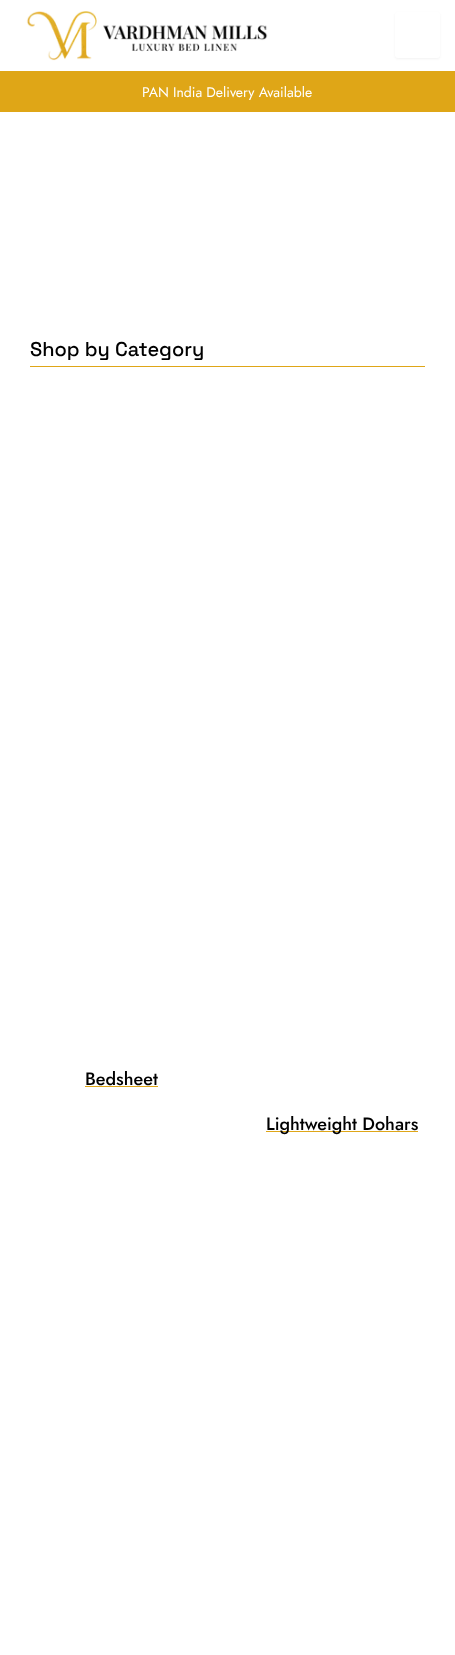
async function draw(canvas) {
	canvas.width = 455;
	canvas.height = 1655;
	const c = canvas.getContext('2d');
	c.miterLimit = 4;
	c.fontKerning = 'normal';
	async function loadImage(src) {
		const img = new Image();
		img.src = src;
		await img.decode();
		return img;
	}

	c.fillStyle = '#fff';
	c.fillRect(0, 0, 455, 1655);
	c.drawImage(await loadImage('img1.png'), 26, 11, 242, 50);
	c.fillStyle = '#0000000d';
	c.filter = 'blur(1px)';
	c.beginPath();
	c.roundRect(395, 13, 45, 46, 3);
	c.fill();
	c.filter = 'none';
	c.fillStyle = '#fff';
	c.beginPath();
	c.roundRect(395, 12, 45, 46, 3);
	c.fill();
	c.fillStyle = '#dfa617';
	c.fillRect(0, 71, 455, 41);
	c.font = '14px Jost';
	c.fillStyle = '#fff';
	c.fillText('PAN India Delivery Available', 142, 97);
	c.fillStyle = '#dfa617';
	c.fillRect(30, 366, 395, 1);
	c.font = '300 20px Space Grotesk';
	c.fillStyle = '#000';
	c.fillText('Shop by Category', 30, 356);
	c.font = '500 18px Jost';
	c.fillText('Bedsheet', 85, 1085);
	c.fillStyle = '#dfa617';
	c.fillRect(85, 1086, 73, 1);
	c.fillRect(266, 1131, 152, 1);
	c.fillStyle = '#000';
	c.fillText('Lightweight Dohars', 266, 1130);
}

draw(document.querySelector('canvas'));
